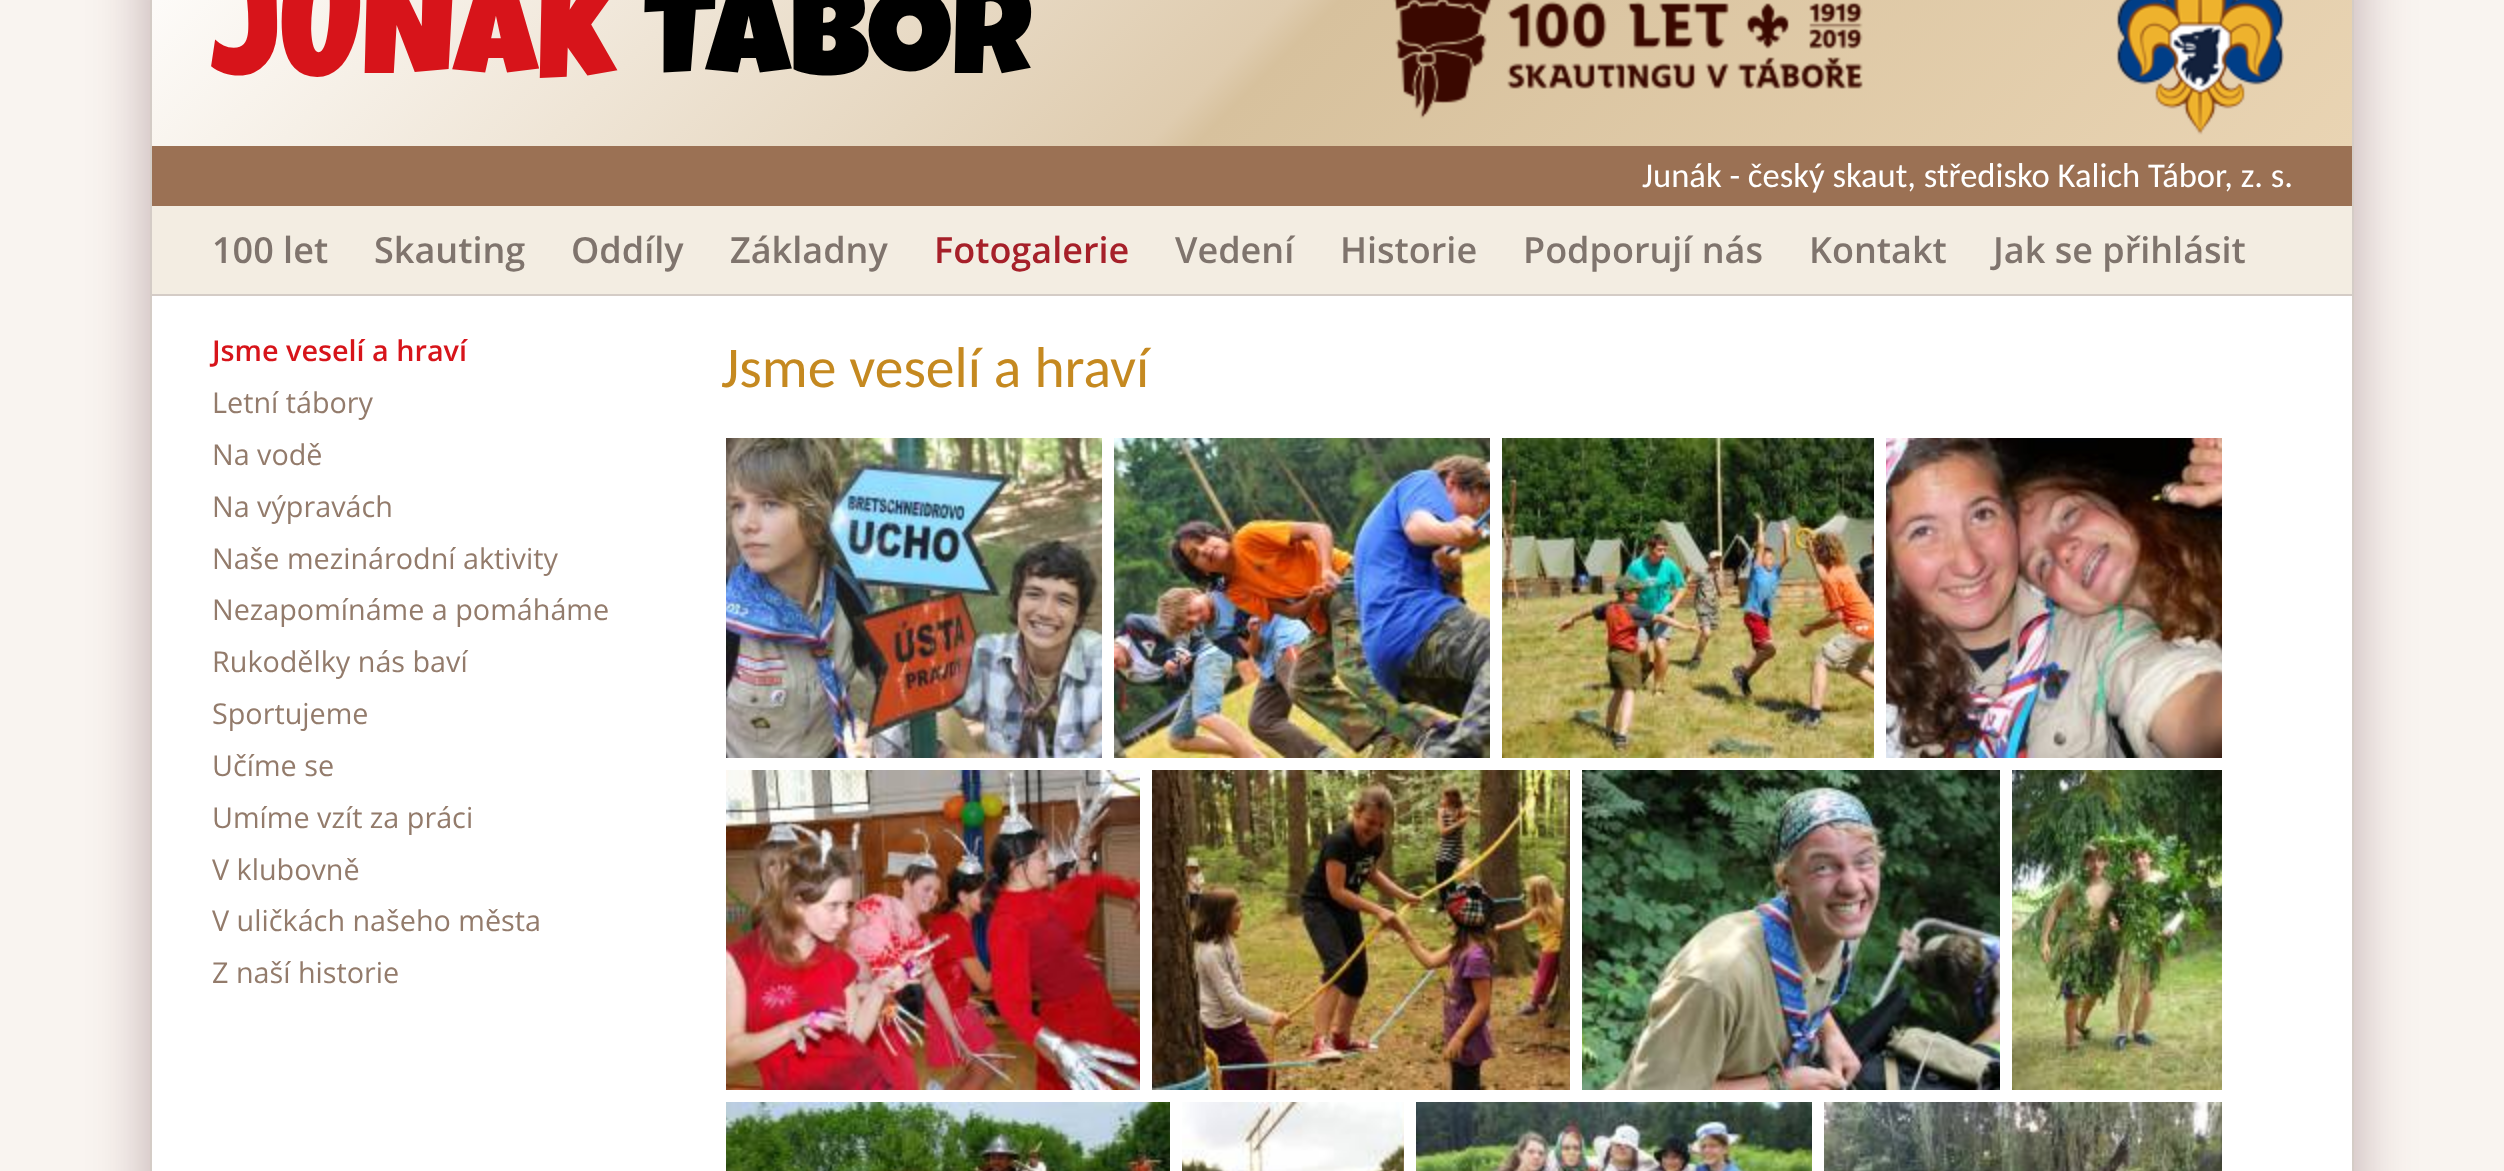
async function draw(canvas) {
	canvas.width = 2504;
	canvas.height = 1171;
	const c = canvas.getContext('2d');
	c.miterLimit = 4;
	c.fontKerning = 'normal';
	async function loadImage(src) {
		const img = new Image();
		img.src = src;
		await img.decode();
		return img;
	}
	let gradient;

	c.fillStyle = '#f9f4f0';
	c.fillRect(0, 0, 2504, 1171);
	c.fillStyle = '#38030e4d';
	c.filter = 'blur(30px)';
	c.beginPath();
	c.roundRect(150, -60, 2204, 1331, 10);
	c.fill();
	c.filter = 'none';
	c.fillStyle = '#fff';
	c.fillRect(152, 296, 2200, 875);
	c.strokeStyle = '#d4ccc6';
	c.lineWidth = 2;
	c.strokeRect(151, -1, 2202, 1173);
	gradient = c.createLinearGradient(648, -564, 1856, 643);
	gradient.addColorStop(0, '#fffefd');
	gradient.addColorStop(0.5, '#dfccaf');
	gradient.addColorStop(0.52, '#d7c19d');
	gradient.addColorStop(1, '#e9d4b3');
	c.fillStyle = gradient;
	c.fillRect(152, 0, 2200, 146);
	c.font = '132.5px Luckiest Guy';
	c.fillStyle = '#d7141a';
	c.fillText('JUNÁK', 212, 74);
	c.fillStyle = '#000';
	c.fillText('TÁBOR', 644, 74);
	c.drawImage(await loadImage('img1.png'), 1393, 0, 470, 119);
	c.drawImage(await loadImage('img2.png'), 2116, 0, 168, 135);
	c.fillStyle = '#9b7154';
	c.fillRect(152, 146, 2200, 60);
	c.font = '34.6px Carlito';
	c.fillStyle = '#fff';
	c.fillText('Junák - český skaut, středisko Kalich Tábor, z. s.', 1642, 187);
	c.fillStyle = '#d4ccc6';
	c.fillRect(152, 294, 2200, 2);
	c.fillStyle = '#f3ede2';
	c.fillRect(152, 206, 2200, 88);
	c.font = '600 36px Open Sans';
	c.fillStyle = '#7f746d';
	for (const [text, x, y] of [
		['100 let', 212, 263],
		['Skauting', 374, 263],
		['Oddíly', 571, 263],
		['Základny', 730, 263],
	]) {
		c.fillText(text, x, y);
	}
	c.fillStyle = '#a62029';
	c.fillText('Fotogalerie', 934, 263);
	c.fillStyle = '#7f746d';
	for (const [text, x, y] of [
		['Vedení', 1175, 263],
		['Historie', 1340, 263],
		['Podporují nás', 1523, 263],
		['Kontakt', 1809, 263],
		['Jak se přihlásit', 1993, 263],
	]) {
		c.fillText(text, x, y);
	}
	c.font = '600 28.75px Open Sans';
	c.fillStyle = '#d7141a';
	c.fillText('Jsme veselí a hraví', 212, 361);
	c.font = '28.75px Open Sans';
	c.fillStyle = '#937b6b';
	for (const [text, x, y] of [
		['Letní tábory', 212, 413],
		['Na vodě', 212, 465],
		['Na výpravách', 212, 517],
		['Naše mezinárodní aktivity', 212, 569],
		['Nezapomínáme a pomáháme', 212, 620],
		['Rukodělky nás baví', 212, 672],
		['Sportujeme', 212, 724],
		['Učíme se', 212, 776],
		['Umíme vzít za práci', 212, 828],
		['V klubovně', 212, 880],
		['V uličkách našeho města', 212, 931],
		['Z naší historie', 212, 983],
	]) {
		c.fillText(text, x, y);
	}
	c.font = '57.5px Carlito';
	c.fillStyle = '#c58920';
	c.fillText('Jsme veselí a hraví', 721, 387);
	c.drawImage(await loadImage('img3.png'), 726, 438, 376, 320);
	c.drawImage(await loadImage('img4.png'), 1114, 438, 376, 320);
	c.drawImage(await loadImage('img5.png'), 1502, 438, 372, 320);
	c.drawImage(await loadImage('img6.png'), 1886, 438, 336, 320);
	c.drawImage(await loadImage('img7.png'), 726, 770, 414, 320);
	c.drawImage(await loadImage('img8.png'), 1152, 770, 418, 320);
	c.drawImage(await loadImage('img9.png'), 1582, 770, 418, 320);
	c.drawImage(await loadImage('img10.png'), 2012, 770, 210, 320);
	c.drawImage(await loadImage('img11.png'), 726, 1102, 444, 69);
	c.drawImage(await loadImage('img12.png'), 1182, 1102, 222, 69);
	c.drawImage(await loadImage('img13.png'), 1416, 1102, 396, 69);
	c.drawImage(await loadImage('img14.png'), 1824, 1102, 398, 69);
}

draw(document.querySelector('canvas'));
